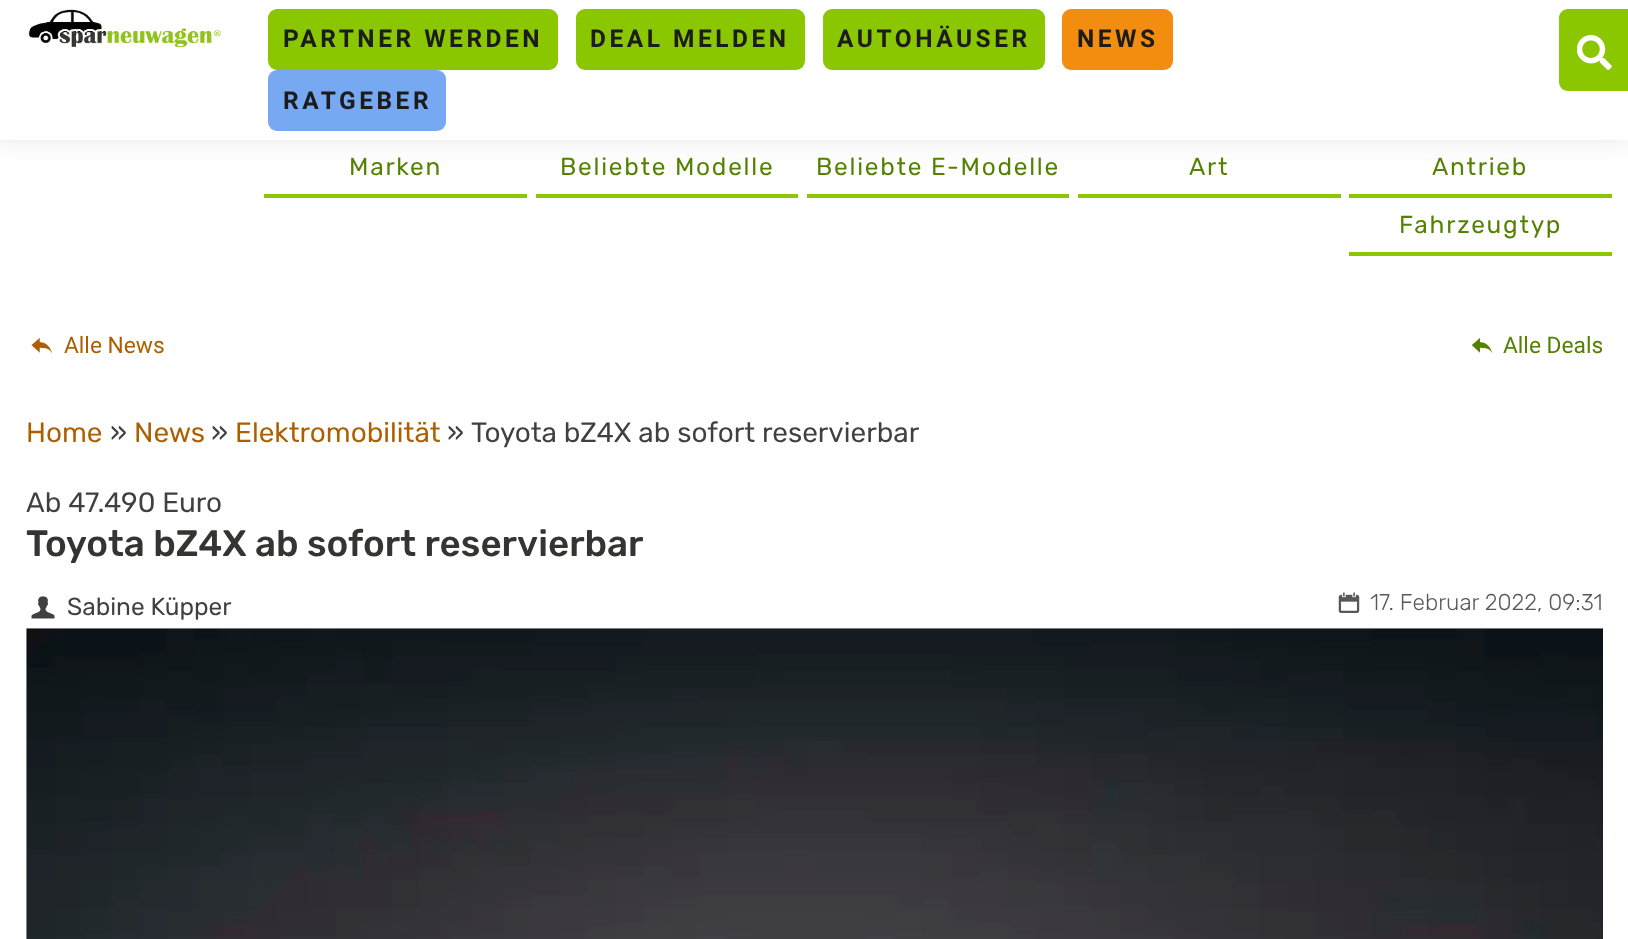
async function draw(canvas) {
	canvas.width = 1628;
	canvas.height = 939;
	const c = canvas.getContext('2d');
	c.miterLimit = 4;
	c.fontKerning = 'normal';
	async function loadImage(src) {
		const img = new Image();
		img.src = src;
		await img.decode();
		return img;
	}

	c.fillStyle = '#fff';
	c.fillRect(0, 0, 1628, 939);
	c.fillStyle = '#32323242';
	c.filter = 'blur(17.5px)';
	c.beginPath();
	c.rect(-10, 26, 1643, 102);
	c.fill();
	c.filter = 'none';
	c.fillStyle = '#fff';
	c.fillRect(0, 0, 1628, 140);
	c.drawImage(await loadImage('img1.png'), 28, 9, 193, 39);
	c.fillStyle = '#8ac700';
	c.beginPath();
	c.roundRect(268, 9, 290, 61, 9);
	c.fill();
	c.letterSpacing = '3.5px';
	c.font = 'bold 24.5px Roboto';
	c.fillStyle = '#1c1c1c';
	c.fillText('PARTNER WERDEN', 283, 47);
	c.fillStyle = '#8ac700';
	c.beginPath();
	c.roundRect(576, 9, 229, 61, 9);
	c.fill();
	c.fillStyle = '#1c1c1c';
	c.fillText('DEAL MELDEN', 590, 47);
	c.fillStyle = '#8ac700';
	c.beginPath();
	c.roundRect(823, 9, 222, 61, 9);
	c.fill();
	c.fillStyle = '#1c1c1c';
	c.fillText('AUTOHÄUSER', 837, 47);
	c.fillStyle = '#f38d10';
	c.beginPath();
	c.roundRect(1062, 9, 111, 61, 9);
	c.fill();
	c.fillStyle = '#1c1c1c';
	c.fillText('NEWS', 1077, 47);
	c.fillStyle = '#77a9f3';
	c.beginPath();
	c.roundRect(268, 70, 178, 61, 9);
	c.fill();
	c.fillStyle = '#1c1c1c';
	c.fillText('RATGEBER', 283, 109);
	c.fillStyle = '#8ac700';
	c.beginPath();
	c.moveTo(1568, 9);
	c.lineTo(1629, 9);
	c.lineTo(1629, 91);
	c.lineTo(1568, 91);
	c.bezierCurveTo(1563, 91, 1559, 87, 1559, 82);
	c.lineTo(1559, 18);
	c.bezierCurveTo(1559, 13, 1563, 9, 1568, 9);
	c.closePath();
	c.fill();
	c.drawImage(await loadImage('img2.png'), 1577, 35, 35, 35);
	c.fillRect(264, 194, 263, 4);
	c.letterSpacing = '1.75px';
	c.font = '24.5px Rubik';
	c.fillStyle = '#538100';
	c.fillText('Marken', 349, 175);
	c.fillStyle = '#8ac700';
	c.fillRect(536, 194, 262, 4);
	c.fillStyle = '#538100';
	c.fillText('Beliebte Modelle', 560, 175);
	c.fillStyle = '#8ac700';
	c.fillRect(807, 194, 262, 4);
	c.fillStyle = '#538100';
	c.fillText('Beliebte E-Modelle', 816, 175);
	c.fillStyle = '#8ac700';
	c.fillRect(1078, 194, 263, 4);
	c.fillStyle = '#538100';
	c.fillText('Art', 1189, 175);
	c.fillStyle = '#8ac700';
	c.fillRect(1349, 194, 263, 4);
	c.fillStyle = '#538100';
	c.fillText('Antrieb', 1432, 175);
	c.fillStyle = '#8ac700';
	c.fillRect(1349, 252, 263, 4);
	c.fillStyle = '#538100';
	c.fillText('Fahrzeugtyp', 1399, 233);
	c.drawImage(await loadImage('img3.png'), 31, 337, 21, 16);
	c.letterSpacing = '0px';
	c.font = '22.75px Roboto';
	c.fillStyle = '#ad5f00';
	c.fillText('Alle News', 64, 353);
	c.drawImage(await loadImage('img4.png'), 1471, 337, 22, 16);
	c.fillStyle = '#538100';
	c.fillText('Alle Deals', 1503, 353);
	c.font = '28px Rubik';
	c.fillStyle = '#ad5f00';
	c.fillText('Home', 26, 442);
	c.fillStyle = '#404040';
	c.fillText('»', 110, 442);
	c.fillStyle = '#ad5f00';
	c.fillText('News', 134, 442);
	c.fillStyle = '#404040';
	c.fillText('»', 211, 442);
	c.fillStyle = '#ad5f00';
	c.fillText('Elektromobilität', 235, 442);
	c.fillStyle = '#404040';
	for (const [text, x, y] of [
		['»', 447, 442],
		['Toyota bZ4X ab sofort reservierbar', 471, 442],
		['Ab 47.490 Euro', 26, 512],
	]) {
		c.fillText(text, x, y);
	}
	c.font = '500 36.75px Rubik';
	c.fillStyle = '#343433';
	c.fillText('Toyota bZ4X ab sofort reservierbar', 26, 556);
	c.drawImage(await loadImage('img5.png'), 31, 596, 24, 23);
	c.font = '24.5px Rubik';
	c.fillStyle = '#404040';
	c.fillText('Sabine Küpper', 67, 615);
	c.drawImage(await loadImage('img6.png'), 1338, 592, 22, 21);
	c.font = '300 22.75px Rubik';
	c.fillStyle = '#585858';
	c.fillText('17. Februar 2022, 09:31', 1370, 610);
	c.drawImage(await loadImage('img7.png'), 26, 628, 1577, 311);
}

draw(document.querySelector('canvas'));
